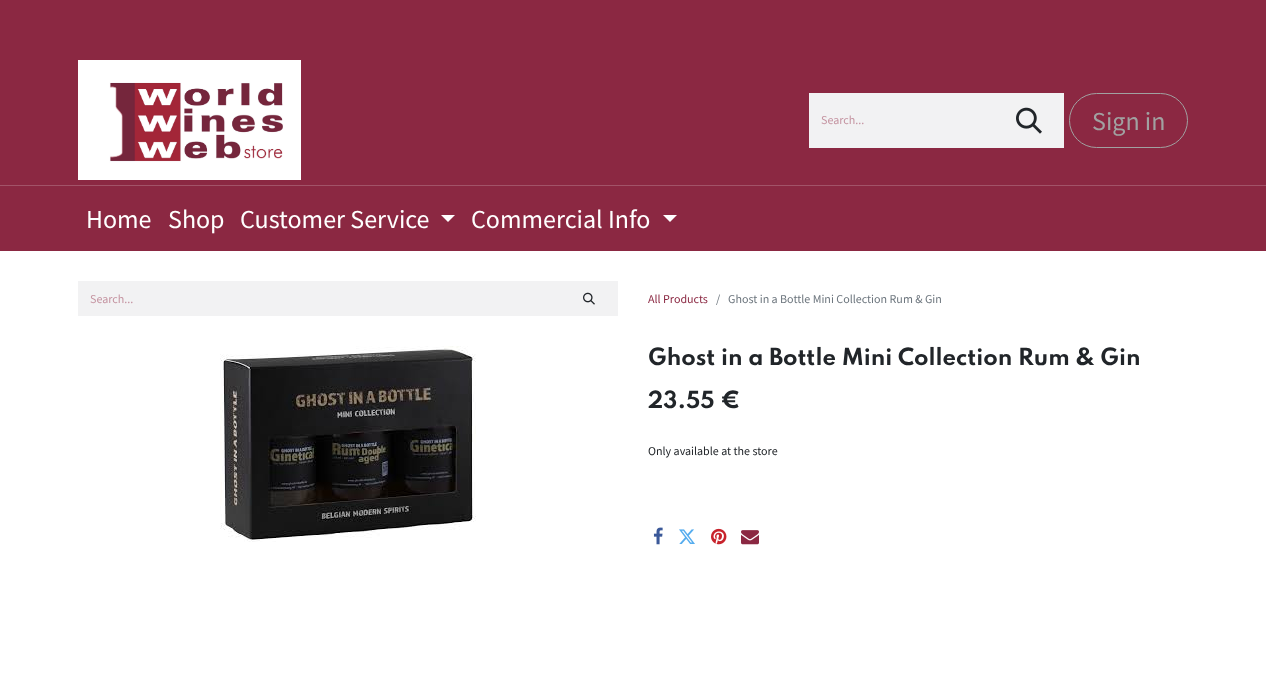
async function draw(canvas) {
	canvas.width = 1266;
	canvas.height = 673;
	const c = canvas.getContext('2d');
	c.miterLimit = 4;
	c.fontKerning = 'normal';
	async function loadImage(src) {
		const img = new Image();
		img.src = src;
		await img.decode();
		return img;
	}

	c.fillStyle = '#fff';
	c.fillRect(0, 0, 1266, 673);
	c.fillStyle = '#8b2842';
	c.fillRect(0, 0, 1266, 251);
	c.drawImage(await loadImage('img1.png'), 78, 60, 223, 120);
	c.fillStyle = '#f2f2f3';
	c.fillRect(809, 93, 255, 55);
	c.font = '12px Source Sans Pro';
	c.fillStyle = '#c594a1';
	c.fillText('Search...', 821, 124);
	c.drawImage(await loadImage('img2.png'), 1016, 107, 26, 27);
	c.beginPath();
	c.roundRect(1069.5, 93.5, 118, 54, 27);
	c.strokeStyle = '#a1a1a1';
	c.stroke();
	c.font = '26px Source Sans Pro';
	c.fillStyle = '#a1a1a1';
	c.fillText('Sign in', 1092, 130);
	c.fillStyle = '#a25368';
	c.fillRect(0, 185, 1266, 1);
	c.fillStyle = '#fff';
	for (const [text, x, y] of [
		['Home', 86, 228],
		['Shop', 168, 228],
		['Customer Service', 240, 228],
	]) {
		c.fillText(text, x, y);
	}
	c.beginPath();
	c.moveTo(441, 215);
	c.lineTo(455, 215);
	c.lineTo(448, 222);
	c.closePath();
	c.fill();
	c.fillText('Commercial Info', 471, 228);
	c.beginPath();
	c.moveTo(663, 215);
	c.lineTo(677, 215);
	c.lineTo(670, 222);
	c.closePath();
	c.fill();
	c.fillStyle = '#f2f2f3';
	c.fillRect(78, 281, 540, 35);
	c.font = '12px Source Sans Pro';
	c.fillStyle = '#c594a1';
	c.fillText('Search...', 90, 303);
	c.drawImage(await loadImage('img3.png'), 583, 292, 12, 13);
	c.fillStyle = '#8b2842';
	c.fillText('All Products', 648, 303);
	c.fillStyle = '#6c757d';
	c.fillText('/', 716, 303);
	c.fillText('Ghost in a Bottle Mini Collection Rum & Gin', 728, 303);
	c.drawImage(await loadImage('img4.png'), 220, 346, 256, 196);
	c.font = 'bold 21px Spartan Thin';
	c.fillStyle = '#212529';
	c.fillText('Ghost in a Bottle Mini Collection Rum & Gin', 648, 365);
	c.fillText('23.55 €', 648, 408);
	c.font = '12px Source Sans Pro';
	c.fillText('Only available at the store', 648, 455);
	c.drawImage(await loadImage('img5.png'), 653, 527, 10, 18);
	c.drawImage(await loadImage('img6.png'), 679, 529, 16, 15);
	c.drawImage(await loadImage('img7.png'), 711, 528, 16, 17);
	c.drawImage(await loadImage('img8.png'), 741, 530, 18, 15);
}

draw(document.querySelector('canvas'));
